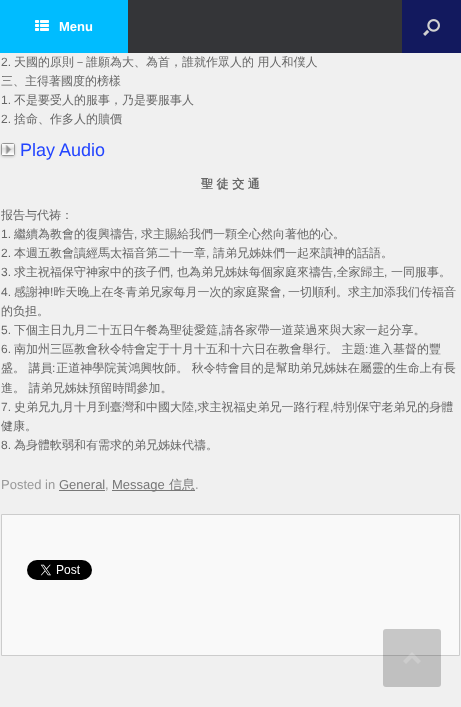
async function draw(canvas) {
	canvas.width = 461;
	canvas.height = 707;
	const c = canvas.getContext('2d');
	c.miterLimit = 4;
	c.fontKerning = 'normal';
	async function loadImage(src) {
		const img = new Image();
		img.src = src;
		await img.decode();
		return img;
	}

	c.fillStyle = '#f0f0f0';
	c.fillRect(0, 0, 461, 707);
	c.fillStyle = '#343538';
	c.fillRect(128, 0, 274, 53);
	c.fillStyle = '#00bcff';
	c.fillRect(0, 0, 128, 53);
	c.drawImage(await loadImage('img1.png'), 35, 20, 14, 11);
	c.font = 'bold 13px Liberation Sans';
	c.fillStyle = '#fff';
	c.fillText('Menu', 59, 31);
	c.fillStyle = '#12195e';
	c.fillRect(402, 0, 59, 53);
	c.drawImage(await loadImage('img2.png'), 423, 19, 17, 17);
	c.font = '12px Liberation Sans';
	c.fillStyle = '#666';
	c.fillText('2.', 1, 66);
	c.font = '500 12px WenQuanYi Zen Hei';
	c.fillText('天國的原則－誰願為大、為首，誰就作眾人的 用人和僕人', 14, 66);
	c.fillText('三、主得著國度的榜樣', 1, 85);
	c.font = '12px Liberation Sans';
	c.fillText('1.', 1, 104);
	c.font = '500 12px WenQuanYi Zen Hei';
	c.fillText('不是要受人的服事，乃是要服事人', 14, 104);
	c.font = '12px Liberation Sans';
	c.fillText('2.', 1, 123);
	c.font = '500 12px WenQuanYi Zen Hei';
	c.fillText('捨命、作多人的贖價', 14, 123);
	c.fillStyle = '#0000002e';
	c.filter = 'blur(1px)';
	c.beginPath();
	c.roundRect(1, 144, 14, 13, 3);
	c.fill();
	c.filter = 'none';
	c.drawImage(await loadImage('img3.png'), 1, 143, 14, 13);
	c.font = '18px Liberation Sans';
	c.fillStyle = '#24f';
	c.fillText('Play Audio', 20, 156);
	c.font = 'bold 12px WenQuanYi Zen Hei';
	c.fillStyle = '#666';
	c.fillText('聖 徒 交 通', 201, 188);
	c.font = '500 12px WenQuanYi Zen Hei';
	c.fillText('报告与代祷：', 1, 219);
	c.font = '12px Liberation Sans';
	c.fillText('1.', 1, 238);
	c.font = '500 12px WenQuanYi Zen Hei';
	c.fillText('繼續為教會的復興禱告', 14, 238);
	c.font = '12px Liberation Sans';
	c.fillText(',', 134, 238);
	c.font = '500 12px WenQuanYi Zen Hei';
	c.fillText('求主賜給我們一顆全心然向著他的心。', 141, 238);
	c.font = '12px Liberation Sans';
	c.fillText('2.', 1, 257);
	c.font = '500 12px WenQuanYi Zen Hei';
	c.fillText('本週五教會讀經馬太福音第二十一章', 14, 257);
	c.font = '12px Liberation Sans';
	c.fillText(',', 206, 257);
	c.font = '500 12px WenQuanYi Zen Hei';
	c.fillText('請弟兄姊妹們一起來讀神的話語。', 213, 257);
	c.font = '12px Liberation Sans';
	c.fillText('3.', 1, 276);
	c.font = '500 12px WenQuanYi Zen Hei';
	c.fillText('求主祝福保守神家中的孩子們', 14, 276);
	c.font = '12px Liberation Sans';
	c.fillText(',', 170, 276);
	c.font = '500 12px WenQuanYi Zen Hei';
	c.fillText('也為弟兄姊妹每個家庭來禱告 全家歸主', 177, 276);
	c.fillText('一同服事。', 391, 276);
	c.font = '12px Liberation Sans';
	for (const [text, x, y] of [
		[',', 333, 276],
		[',', 384, 276],
		['4.', 1, 296],
	]) {
		c.fillText(text, x, y);
	}
	c.font = '500 12px WenQuanYi Zen Hei';
	c.fillText('感謝神 昨天晚上在冬青弟兄家每月一次的家庭聚會', 14, 296);
	c.fillText('一切順利。求主加添我们传福音', 288, 296);
	c.font = '12px Liberation Sans';
	c.fillText('!', 50, 296);
	c.fillText(',', 282, 296);
	c.font = '500 12px WenQuanYi Zen Hei';
	c.fillText('的负担。', 1, 315);
	c.font = '12px Liberation Sans';
	c.fillText('5.', 1, 334);
	c.font = '500 12px WenQuanYi Zen Hei';
	c.fillText('下個主日九月二十五日午餐為聖徒愛筵 請各家帶一道菜過來與大家一起分享。', 14, 334);
	c.font = '12px Liberation Sans';
	c.fillText(',', 218, 334);
	c.fillText('6.', 1, 353);
	c.font = '500 12px WenQuanYi Zen Hei';
	c.fillText('南加州三區教會秋令特會定于十月十五和十六日在教會舉行。 主題', 14, 353);
	c.font = '12px Liberation Sans';
	c.fillText(':', 365, 353);
	c.font = '500 12px WenQuanYi Zen Hei';
	c.fillText('進入基督的豐', 369, 353);
	c.fillText('盛。 講員 正道神學院黃鴻興牧師。 秋令特會目的是幫助弟兄姊妹在屬靈的生命上有長', 1, 372);
	c.font = '12px Liberation Sans';
	c.fillText(':', 52, 372);
	c.font = '500 12px WenQuanYi Zen Hei';
	c.fillText('進。 請弟兄姊妹預留時間參加。', 1, 392);
	c.font = '12px Liberation Sans';
	c.fillText('7.', 1, 411);
	c.font = '500 12px WenQuanYi Zen Hei';
	c.fillText('史弟兄九月十月到臺灣和中國大陸 求主祝福史弟兄一路行程 特別保守老弟兄的身體', 14, 411);
	c.font = '12px Liberation Sans';
	c.fillText(',', 194, 411);
	c.fillText(',', 330, 411);
	c.font = '500 12px WenQuanYi Zen Hei';
	c.fillText('健康。', 1, 430);
	c.font = '12px Liberation Sans';
	c.fillText('8.', 1, 449);
	c.font = '500 12px WenQuanYi Zen Hei';
	c.fillText('為身體軟弱和有需求的弟兄姊妹代禱。', 14, 449);
	c.font = '13px Liberation Sans';
	c.fillStyle = '#999';
	c.fillText('Posted in', 1, 489);
	c.fillStyle = '#777';
	c.fillText('General', 59, 489);
	c.fillRect(59, 490, 46, 1);
	c.fillStyle = '#999';
	c.fillText(',', 105, 489);
	c.fillStyle = '#777';
	c.fillRect(112, 490, 83, 1);
	c.fillText('Message', 112, 489);
	c.font = '500 13px WenQuanYi Zen Hei';
	c.fillText('信息', 169, 489);
	c.font = '13px Liberation Sans';
	c.fillStyle = '#999';
	c.fillText('.', 195, 489);
	c.fillStyle = '#f9f9f9';
	c.beginPath();
	c.rect(1.5, 514.5, 458, 141);
	c.fill();
	c.strokeStyle = '#ccc';
	c.stroke();
	c.drawImage(await loadImage('img4.png'), 27, 560, 65, 20);
	c.fillStyle = '#00000033';
	c.beginPath();
	c.roundRect(383, 629, 58, 58, 3);
	c.fill();
	c.fillStyle = '#ffffff33';
	c.beginPath();
	c.moveTo(421, 661);
	c.lineTo(412, 652);
	c.lineTo(403, 661);
	c.lineTo(406, 664);
	c.lineTo(412, 658);
	c.lineTo(418, 664);
	c.closePath();
	c.fill();
}

draw(document.querySelector('canvas'));
